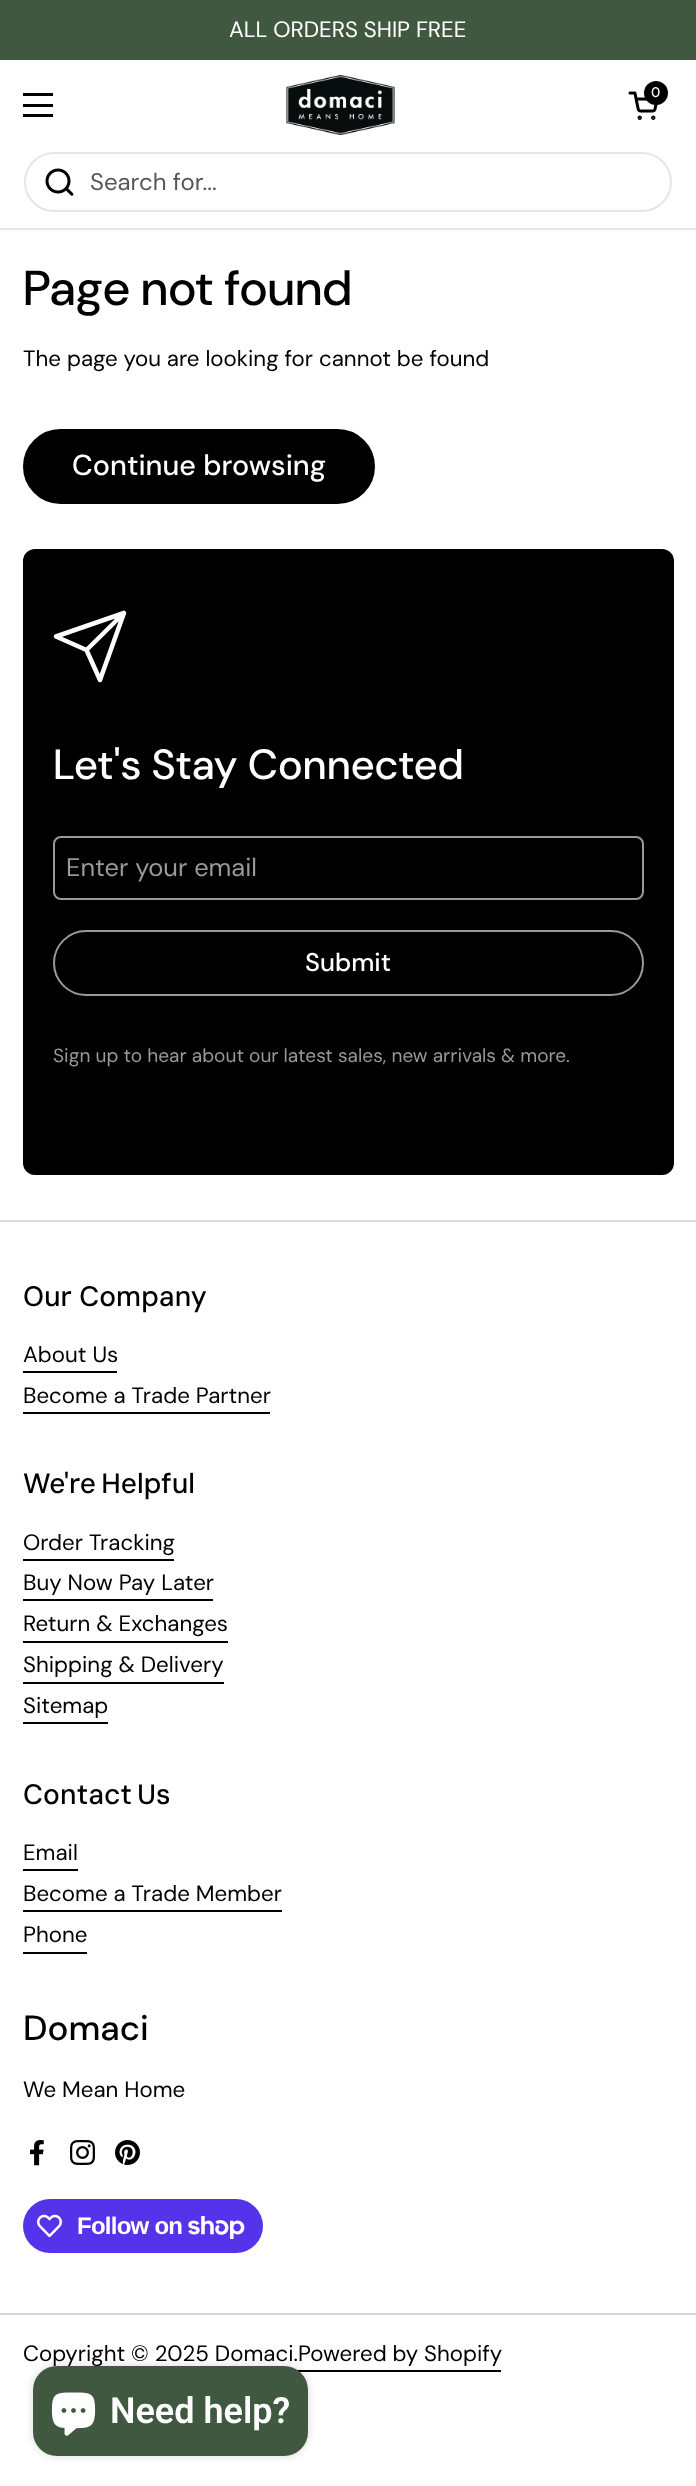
async function draw(canvas) {
	canvas.width = 696;
	canvas.height = 2486;
	const c = canvas.getContext('2d');
	c.miterLimit = 4;
	c.fontKerning = 'normal';
	async function loadImage(src) {
		const img = new Image();
		img.src = src;
		await img.decode();
		return img;
	}

	c.fillStyle = '#fff';
	c.fillRect(0, 0, 696, 2486);
	c.fillStyle = '#405840';
	c.fillRect(0, 0, 696, 60);
	c.font = '22.3px DM Sans';
	c.fillStyle = '#fff';
	c.fillText('ALL ORDERS SHIP FREE', 229, 37);
	for (const [x, y, w, h, color] of [
		[23, 93, 30, 3, '#000'],
		[23, 104, 30, 3, '#000'],
		[23, 114, 30, 3, '#000'],
	]) {
		c.fillStyle = color;
		c.fillRect(x, y, w, h);
	}
	c.drawImage(await loadImage('img1.png'), 286, 75, 109, 60);
	c.drawImage(await loadImage('img2.png'), 628, 91, 30, 29);
	c.beginPath();
	c.arc(656, 93, 12, 0, 2 * Math.PI);
	c.fill();
	c.font = '500 14px "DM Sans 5"';
	c.fillStyle = '#fff';
	c.fillText('0', 651, 97);
	c.fillStyle = '#e6e6e6';
	c.fillRect(0, 228, 696, 2);
	c.beginPath();
	c.roundRect(25, 153, 646, 58, 29);
	c.strokeStyle = '#e6e6e6';
	c.lineWidth = 2;
	c.stroke();
	c.drawImage(await loadImage('img3.png'), 45, 168, 29, 28);
	c.font = '24px "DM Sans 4"';
	c.fillStyle = '#575757';
	c.fillText('Search for...', 90, 190);
	c.font = '500 49px DM Sans';
	c.fillStyle = '#000';
	c.fillText('Page not found', 23, 305);
	c.font = '22.3px DM Sans';
	c.fillText('The page you are looking for cannot be found', 23, 366);
	c.beginPath();
	c.roundRect(24, 430, 350, 73, 36.5);
	c.fill();
	c.strokeStyle = '#000';
	c.stroke();
	c.font = '500 28.75px "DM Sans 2"';
	c.fillStyle = '#fff';
	c.fillText('Continue browsing', 72, 475);
	c.fillStyle = '#000';
	c.beginPath();
	c.roundRect(23, 549, 651, 626, 12);
	c.fill();
	c.beginPath();
	c.moveTo(124, 613);
	c.lineTo(86.5, 650);
	c.moveTo(124, 613);
	c.lineTo(100, 680);
	c.lineTo(86.5, 650);
	c.lineTo(56, 636.5);
	c.closePath();
	c.strokeStyle = '#fff';
	c.lineWidth = 4.5;
	c.lineCap = 'round';
	c.lineJoin = 'round';
	c.stroke();
	c.font = '500 42px "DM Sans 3"';
	c.fillStyle = '#fff';
	c.fillText('Let\'s Stay Connected', 53, 779);
	c.beginPath();
	c.roundRect(54, 837, 589, 62, 7);
	c.strokeStyle = '#999';
	c.lineWidth = 2;
	c.lineJoin = 'miter';
	c.stroke();
	c.font = '25.5px "DM Sans 2"';
	c.fillStyle = '#999';
	c.fillText('Enter your email', 66, 876);
	c.beginPath();
	c.roundRect(54, 931, 589, 64, 32);
	c.stroke();
	c.font = '500 25.5px "DM Sans 4"';
	c.fillStyle = '#fff';
	c.fillText('Submit', 305, 971);
	c.font = '19.1px "DM Sans 3"';
	c.fillStyle = '#999';
	c.fillText('Sign up to hear about our latest sales, new arrivals & more.', 53, 1062);
	c.fillStyle = '#d9d9d9';
	c.fillRect(0, 1220, 696, 2);
	c.font = '500 28px "DM Sans 5"';
	c.fillStyle = '#000';
	c.fillText('Our Company', 23, 1306);
	c.font = '22.3px DM Sans';
	c.fillText('About Us', 23, 1362);
	c.fillRect(23, 1371, 94, 2);
	c.fillText('Become a Trade Partner', 23, 1403);
	c.fillRect(23, 1412, 247, 2);
	c.wordSpacing = '-2px';
	c.font = '500 28px "DM Sans 5"';
	c.fillText('We\'re Helpful', 23, 1493);
	c.wordSpacing = '0px';
	c.font = '22.3px DM Sans';
	c.fillText('Order Tracking', 23, 1550);
	c.fillRect(23, 1559, 151, 2);
	c.fillText('Buy Now Pay Later', 23, 1590);
	c.fillRect(23, 1599, 190, 2);
	c.fillText('Return & Exchanges', 23, 1631);
	c.fillRect(23, 1641, 205, 2);
	c.fillText('Shipping & Delivery', 23, 1672);
	c.fillRect(23, 1682, 201, 2);
	c.fillText('Sitemap', 23, 1713);
	c.fillRect(23, 1722, 85, 2);
	c.wordSpacing = '-2px';
	c.font = '500 28px "DM Sans 5"';
	c.fillText('Contact Us', 23, 1804);
	c.wordSpacing = '0px';
	c.font = '22.3px DM Sans';
	c.fillText('Email', 23, 1860);
	c.fillRect(23, 1869, 55, 2);
	c.fillText('Become a Trade Member', 23, 1901);
	c.fillRect(23, 1910, 259, 2);
	c.fillText('Phone', 23, 1942);
	c.fillRect(23, 1952, 64, 2);
	c.font = '500 35px "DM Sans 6"';
	c.fillText('Domaci', 23, 2040);
	c.font = '22.3px DM Sans';
	c.fillText('We Mean Home', 23, 2097);
	c.drawImage(await loadImage('img4.png'), 30, 2140, 14, 26);
	c.drawImage(await loadImage('img5.png'), 70, 2140, 25, 25);
	c.drawImage(await loadImage('img6.png'), 115, 2140, 25, 25);
	c.fillStyle = '#5433eb';
	c.beginPath();
	c.roundRect(23, 2199, 240, 54, 27);
	c.fill();
	c.drawImage(await loadImage('img7.png'), 37, 2214, 25, 24);
	c.letterSpacing = '-0.75px';
	c.font = 'bold 24px Liberation Sans';
	c.fillStyle = '#fff';
	c.fillText('Follow on', 77, 2234);
	c.drawImage(await loadImage('img8.png'), 188, 2216, 57, 23);
	c.fillStyle = '#d9d9d9';
	c.fillRect(0, 2313, 696, 2);
	c.letterSpacing = '0px';
	c.font = '22.3px DM Sans';
	c.fillStyle = '#000';
	c.fillText('Copyright © 2025 Domaci.Powered by Shopify', 23, 2361);
	c.fillRect(297, 2370, 204, 2);
	c.fillStyle = '#00000026';
	c.filter = 'blur(4px)';
	c.beginPath();
	c.roundRect(33, 2366, 275, 90, 24);
	c.fill();
	c.filter = 'none';
	c.fillStyle = '#405840';
	c.beginPath();
	c.roundRect(33, 2366, 275, 90, 24);
	c.fill();
	c.drawImage(await loadImage('img9.png'), 51, 2392, 45, 44);
	c.font = '600 36px Roboto';
	c.fillStyle = '#fff';
	c.fillText('Need help?', 110, 2423);
}

draw(document.querySelector('canvas'));
